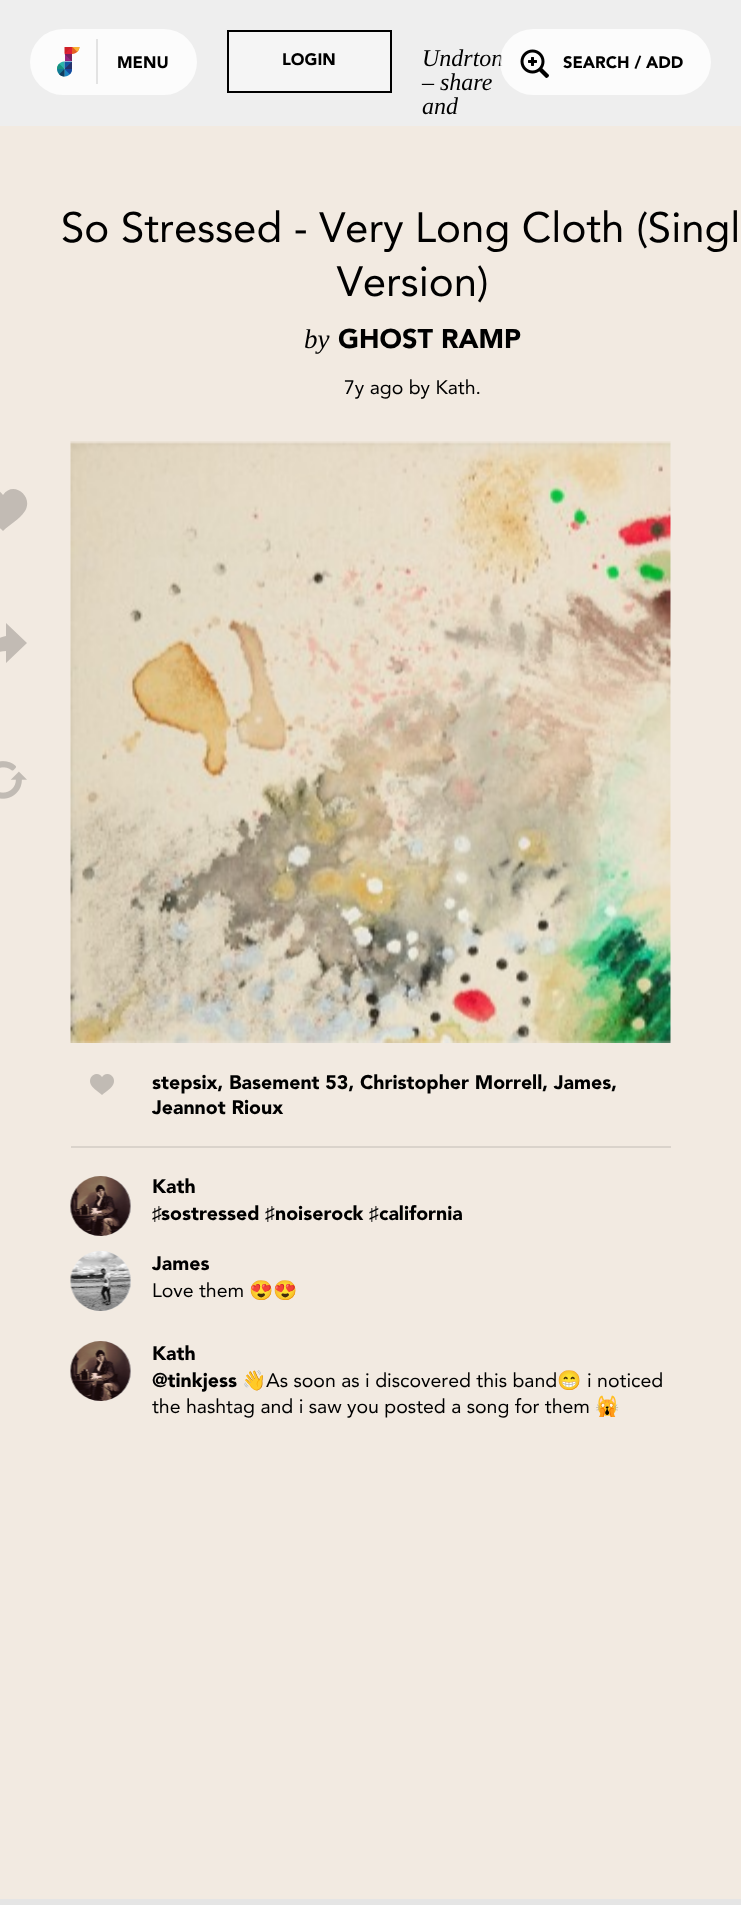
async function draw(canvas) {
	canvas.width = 741;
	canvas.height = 1905;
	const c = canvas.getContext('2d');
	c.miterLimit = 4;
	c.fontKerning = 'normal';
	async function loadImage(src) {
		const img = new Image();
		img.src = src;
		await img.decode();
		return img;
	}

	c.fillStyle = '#f2eae1';
	c.fillRect(0, 0, 741, 1905);
	c.fillStyle = '#eee';
	c.fillRect(0, 0, 741, 126);
	c.fillStyle = '#fcfcfc';
	c.beginPath();
	c.roundRect(30, 29, 167, 66, 33);
	c.fill();
	c.drawImage(await loadImage('img1.png'), 57, 47, 23, 30);
	c.fillStyle = '#e3e3e3';
	c.fillRect(96, 39, 2, 45);
	c.font = '900 16.5px Avenir';
	c.fillStyle = '#000';
	c.fillText('MENU', 117, 68);
	c.fillStyle = '#f5f5f5';
	c.beginPath();
	c.rect(228, 31, 163, 61);
	c.fill();
	c.strokeStyle = '#000';
	c.lineWidth = 2;
	c.stroke();
	c.fillStyle = '#000';
	c.fillText('LOGIN', 282, 65);
	c.font = 'italic 24px Liberation Serif';
	for (const [text, x, y] of [
		['Undrton', 422, 66],
		['– share', 422, 90],
		['and', 422, 114],
	]) {
		c.fillText(text, x, y);
	}
	c.fillStyle = '#ffffffcc';
	c.beginPath();
	c.roundRect(500, 29, 211, 66, 33);
	c.fill();
	c.drawImage(await loadImage('img2.png'), 520, 49, 29, 29);
	c.font = '900 16.5px Avenir';
	c.fillStyle = '#000';
	c.fillText('SEARCH / ADD', 563, 68);
	c.font = '42px Avenir';
	c.fillText('So Stressed - Very Long Cloth (Singl', 61, 242);
	c.fillText('Version)', 337, 296);
	c.font = 'italic 27px Liberation Serif';
	c.fillText('by', 304, 348);
	c.font = '900 27px Avenir';
	c.fillText('GHOST RAMP', 338, 348);
	c.font = '19.5px Avenir';
	c.fillText('7y ago by Kath.', 344, 394);
	c.fillStyle = '#c2bbb4';
	c.beginPath();
	c.moveTo(3, 495);
	c.bezierCurveTo(-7, 480, -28, 496, -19, 511);
	c.bezierCurveTo(-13, 520, -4, 524, 3, 531);
	c.bezierCurveTo(10, 524, 19, 520, 25, 511);
	c.bezierCurveTo(34, 496, 13, 480, 3, 495);
	c.closePath();
	c.fill();
	c.beginPath();
	c.moveTo(27, 643);
	c.lineTo(6, 623);
	c.lineTo(6, 636);
	c.bezierCurveTo(-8, 639, -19, 649, -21, 663);
	c.bezierCurveTo(-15, 655, -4, 652, 6, 651);
	c.lineTo(6, 663);
	c.closePath();
	c.fill();
	c.drawImage(await loadImage('img3.png'), 0, 761, 27, 38);
	c.drawImage(await loadImage('img4.png'), 70, 441, 601, 602);
	c.drawImage(await loadImage('img5.png'), 90, 1074, 24, 21);
	c.font = '900 19.5px Avenir';
	c.fillStyle = '#000';
	c.fillText('stepsix, Basement 53, Christopher Morrell, James,', 152, 1089);
	c.fillText('Jeannot Rioux', 152, 1114);
	c.fillStyle = '#dad3cb';
	c.fillRect(71, 1146, 600, 2);
	c.fillStyle = '#e6e6e6';
	c.beginPath();
	c.arc(101, 1206, 30, 0, 2 * Math.PI);
	c.fill();
	c.drawImage(await loadImage('img6.png'), 70, 1176, 61, 60);
	c.fillStyle = '#000';
	c.fillText('Kath', 152, 1193);
	c.font = '19.5px Liberation Serif';
	c.fillText('♯', 152, 1220);
	c.font = '900 19.5px Avenir';
	c.fillText('sostressed', 161, 1220);
	c.font = '19.5px Liberation Serif';
	c.fillText('♯', 265, 1220);
	c.font = '900 19.5px Avenir';
	c.fillText('noiserock', 275, 1220);
	c.font = '19.5px Liberation Serif';
	c.fillText('♯', 369, 1220);
	c.font = '900 19.5px Avenir';
	c.fillText('california', 379, 1220);
	c.fillStyle = '#e6e6e6';
	c.beginPath();
	c.arc(101, 1281, 30, 0, 2 * Math.PI);
	c.fill();
	c.drawImage(await loadImage('img7.png'), 70, 1251, 61, 60);
	c.fillStyle = '#000';
	c.fillText('James', 152, 1270);
	c.font = '19.5px Avenir';
	c.fillText('Love them', 152, 1297);
	c.font = '19.5px Noto Color Emoji';
	c.fillText('😍😍', 249, 1297);
	c.fillStyle = '#e6e6e6';
	c.beginPath();
	c.arc(101, 1371, 30, 0, 2 * Math.PI);
	c.fill();
	c.drawImage(await loadImage('img6.png'), 70, 1341, 61, 60);
	c.font = '900 19.5px Avenir';
	c.fillStyle = '#000';
	c.fillText('Kath', 152, 1360);
	c.fillText('@tinkjess', 152, 1387);
	c.font = '19.5px Noto Color Emoji';
	c.fillText('👋', 242, 1387);
	c.font = '19.5px Avenir';
	c.fillText('As soon as i discovered this band', 266, 1387);
	c.font = '19.5px Noto Color Emoji';
	c.fillText('😁', 557, 1387);
	c.font = '19.5px Avenir';
	c.fillText('i noticed', 587, 1387);
	c.fillText('the hashtag and i saw you posted a song for them', 152, 1413);
	c.font = '19.5px Noto Color Emoji';
	c.fillText('🙀', 595, 1413);
	c.fillStyle = '#e5e5e5';
	c.fillRect(0, 1899, 741, 6);
}

draw(document.querySelector('canvas'));
